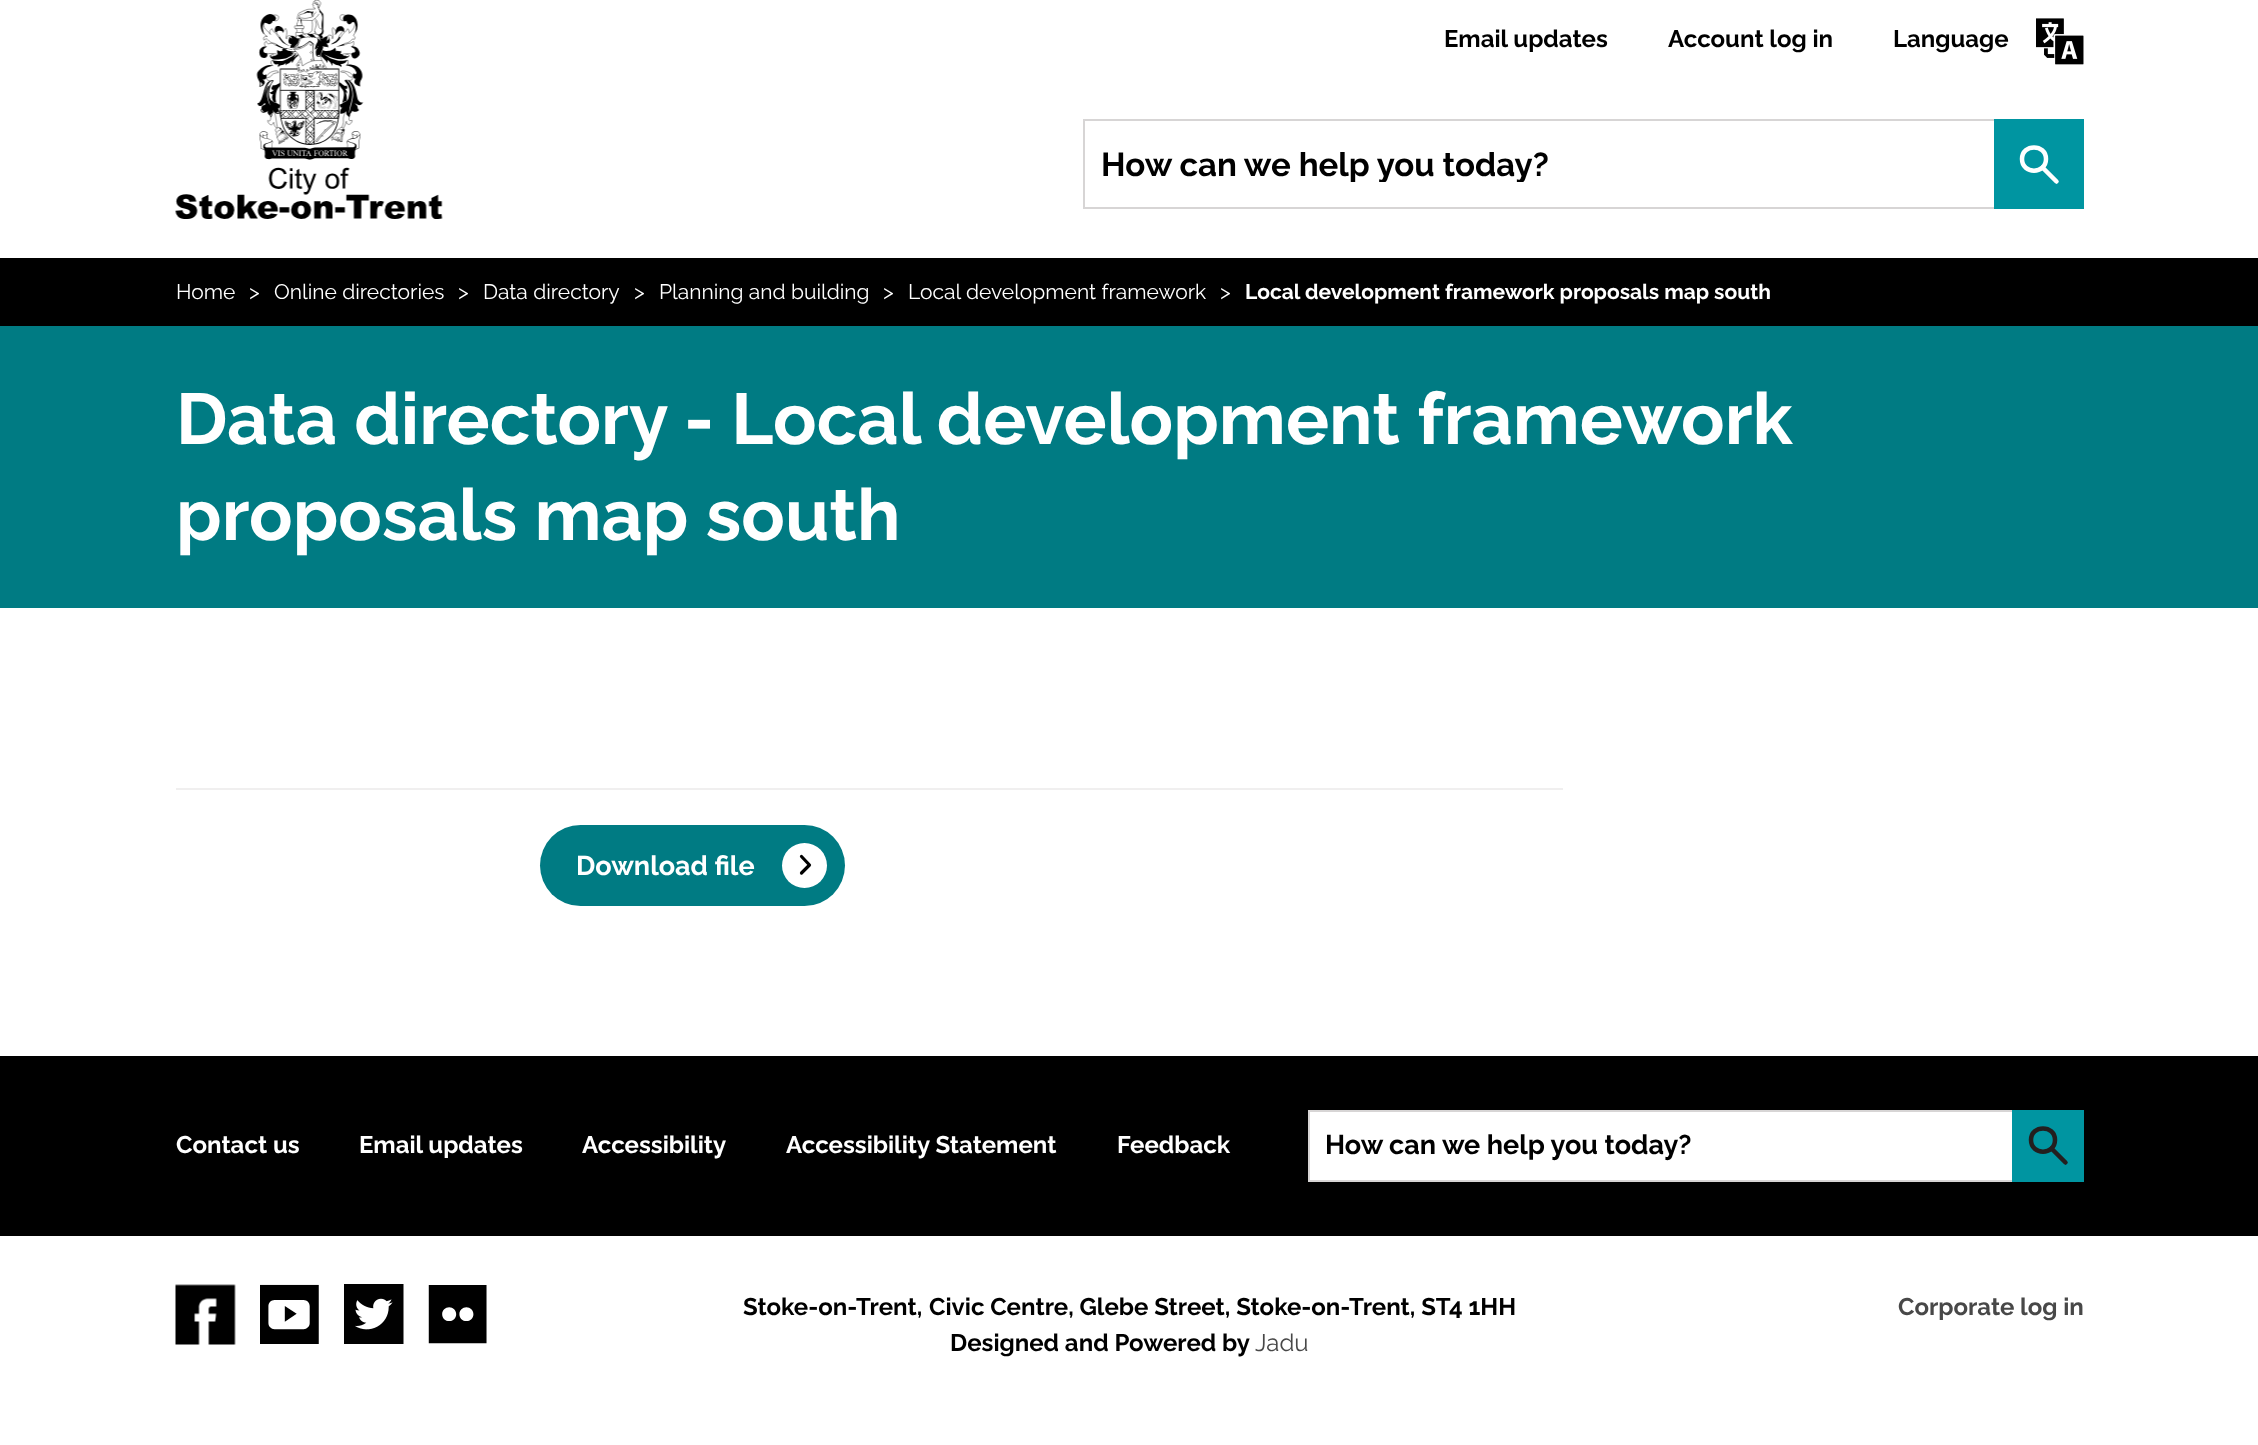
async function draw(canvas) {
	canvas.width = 2258;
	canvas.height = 1445;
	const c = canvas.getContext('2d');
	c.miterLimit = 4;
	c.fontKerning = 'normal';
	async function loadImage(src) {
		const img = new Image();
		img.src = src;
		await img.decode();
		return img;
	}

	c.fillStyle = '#fff';
	c.fillRect(0, 0, 2258, 1445);
	c.drawImage(await loadImage('img1.png'), 175, 0, 268, 219);
	c.font = 'bold 24px Raleway';
	c.fillStyle = '#000';
	for (const [text, x, y] of [
		['Email updates', 1444, 47],
		['Account log in', 1668, 47],
		['Language', 1893, 47],
	]) {
		c.fillText(text, x, y);
	}
	c.drawImage(await loadImage('img2.png'), 2036, 18, 48, 47);
	c.strokeStyle = '#d7d5d5';
	c.lineWidth = 2;
	c.strokeRect(1084, 120, 999, 88);
	c.fillStyle = '#0095a1';
	c.fillRect(1994, 119, 90, 90);
	c.beginPath();
	c.moveTo(2042.5, 167.5);
	c.lineTo(2056.5, 181.5);
	c.strokeStyle = '#fff';
	c.lineWidth = 4.5;
	c.lineCap = 'round';
	c.stroke();
	c.beginPath();
	c.moveTo(2046, 159);
	c.bezierCurveTo(2046, 174.5, 2022, 174.5, 2022, 159);
	c.bezierCurveTo(2022, 143.5, 2046, 143.5, 2046, 159);
	c.closePath();
	c.lineCap = 'butt';
	c.stroke();
	c.save();
	c.beginPath();
	c.rect(1083, 146, 911, 36);
	c.clip();
	c.font = 'bold 33px Raleway';
	c.fillStyle = '#000';
	c.fillText('How can we help you today?', 1101, 176);
	c.restore();
	c.fillStyle = '#000';
	c.fillRect(0, 258, 2258, 68);
	c.font = '21px Raleway';
	c.fillStyle = '#fff';
	for (const [text, x, y] of [
		['Home', 176, 299],
		['>', 249, 299],
		['Online directories', 274, 299],
		['>', 458, 299],
		['Data directory', 483, 299],
		['>', 634, 299],
		['Planning and building', 659, 299],
		['>', 883, 299],
		['Local development framework', 908, 299],
		['>', 1220, 299],
	]) {
		c.fillText(text, x, y);
	}
	c.font = 'bold 21px Raleway';
	c.fillText('Local development framework proposals map south', 1245, 299);
	c.fillStyle = '#007b83';
	c.fillRect(0, 326, 2258, 282);
	c.font = 'bold 72px Raleway';
	c.fillStyle = '#fff';
	c.fillText('Data directory - Local development framework', 176, 444);
	c.fillText('proposals map south', 176, 540);
	c.fillStyle = '#f0efef';
	c.fillRect(176, 788, 1387, 2);
	c.fillStyle = '#007b83';
	c.beginPath();
	c.roundRect(540, 825, 305, 81, 40.5);
	c.fill();
	c.font = 'bold 27px Raleway';
	c.fillStyle = '#fff';
	c.fillText('Download file', 576, 875);
	c.beginPath();
	c.arc(804.5, 865.5, 22.5, 0, 2 * Math.PI);
	c.fill();
	c.beginPath();
	c.moveTo(801.5, 856.5);
	c.lineTo(809.5, 865);
	c.lineTo(801.5, 873);
	c.strokeStyle = '#000';
	c.lineWidth = 3.2;
	c.lineCap = 'round';
	c.lineJoin = 'round';
	c.stroke();
	c.fillStyle = '#000';
	c.fillRect(0, 1056, 2258, 180);
	c.font = 'bold 24px Raleway';
	c.fillStyle = '#fff';
	for (const [text, x, y] of [
		['Contact us', 176, 1153],
		['Email updates', 359, 1153],
		['Accessibility', 582, 1153],
		['Accessibility Statement', 786, 1153],
		['Feedback', 1117, 1153],
	]) {
		c.fillText(text, x, y);
	}
	c.fillRect(1310, 1112, 702, 68);
	c.strokeStyle = '#d7d5d5';
	c.lineWidth = 2;
	c.lineJoin = 'miter';
	c.strokeRect(1309, 1111, 774, 70);
	c.fillStyle = '#0095a1';
	c.fillRect(2012, 1110, 72, 72);
	c.beginPath();
	c.moveTo(2051.5, 1148.5);
	c.lineTo(2065.5, 1162.5);
	c.strokeStyle = '#231f1f';
	c.lineWidth = 4.5;
	c.stroke();
	c.beginPath();
	c.moveTo(2055, 1140);
	c.bezierCurveTo(2055, 1155.5, 2031, 1155.5, 2031, 1140);
	c.bezierCurveTo(2031, 1124.5, 2055, 1124.5, 2055, 1140);
	c.closePath();
	c.lineCap = 'butt';
	c.stroke();
	c.font = 'bold 27px Raleway';
	c.fillStyle = '#000';
	c.fillText('How can we help you today?', 1325, 1154);
	c.drawImage(await loadImage('img3.png'), 175, 1284, 61, 61);
	c.drawImage(await loadImage('img4.png'), 260, 1284, 59, 60);
	c.drawImage(await loadImage('img5.png'), 344, 1284, 60, 60);
	c.drawImage(await loadImage('img6.png'), 428, 1285, 59, 59);
	c.font = 'bold 24px Raleway';
	c.fillText('Stoke-on-Trent,', 743, 1315);
	c.fillText('Civic Centre, Glebe Street, Stoke-on-Trent, ST4 1HH', 929, 1315);
	c.fillStyle = '#484848';
	c.fillText('Corporate log in', 1898, 1315);
	c.fillStyle = '#000';
	c.fillText('Designed and Powered by', 950, 1351);
	c.font = '24px Raleway';
	c.fillStyle = '#484848';
	c.fillText('Jadu', 1255, 1351);
}

draw(document.querySelector('canvas'));
